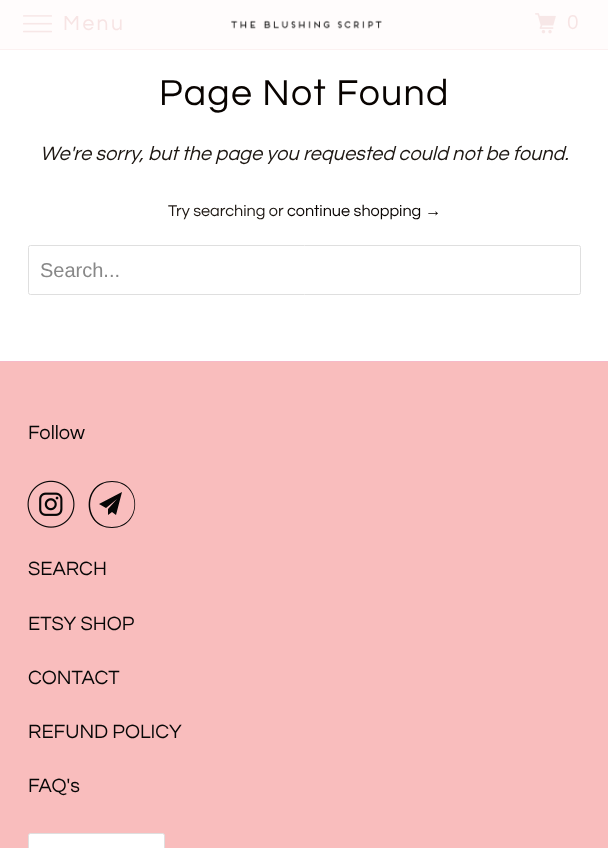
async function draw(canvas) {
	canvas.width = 608;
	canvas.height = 848;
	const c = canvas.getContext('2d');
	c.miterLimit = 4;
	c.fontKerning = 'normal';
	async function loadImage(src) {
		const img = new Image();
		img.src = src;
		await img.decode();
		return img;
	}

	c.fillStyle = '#fff';
	c.fillRect(0, 0, 608, 848);
	c.fillStyle = '#fffcfc';
	c.fillRect(0, 0, 608, 49);
	c.fillStyle = '#fcf1f1';
	c.fillRect(0, 49, 608, 1);
	c.drawImage(await loadImage('img1.png'), 23, 15, 29, 18);
	c.letterSpacing = '2.5px';
	c.font = '21px Questrial';
	c.fillStyle = '#f7e4e4';
	c.fillText('Menu', 63, 30);
	c.drawImage(await loadImage('img2.png'), 231, 20, 151, 9);
	c.drawImage(await loadImage('img3.png'), 535, 13, 21, 21);
	c.fillText('0', 567, 29);
	c.letterSpacing = '1.25px';
	c.font = '37.5px Questrial';
	c.fillStyle = '#080300';
	c.fillText('Page Not Found', 159, 105);
	c.letterSpacing = '0px';
	c.font = 'italic 20px Questrial';
	c.fillStyle = '#1d1712';
	c.fillText('We\'re sorry, but the page you requested could not be found.', 40, 160);
	c.font = '16.25px Questrial';
	c.fillText('Try searching or', 168, 216);
	c.fillStyle = '#080300';
	c.fillText('continue shopping', 287, 216);
	c.font = '16.25px Liberation Sans';
	c.fillText('→', 425, 216);
	c.beginPath();
	c.roundRect(28.5, 245.5, 552, 49, 2);
	c.strokeStyle = '#dfdfdf';
	c.stroke();
	c.font = '20px Liberation Sans';
	c.fillStyle = '#888';
	c.fillText('Search...', 40, 277);
	c.fillStyle = '#f9bdbd';
	c.fillRect(0, 362, 608, 486);
	c.fillStyle = '#f6b9c8';
	c.fillRect(0, 361, 608, 1);
	c.font = '20px Questrial';
	c.fillStyle = '#060606';
	c.fillText('Follow', 28, 439);
	c.drawImage(await loadImage('img4.png'), 27, 480, 48, 48);
	c.beginPath();
	c.moveTo(116, 515);
	c.lineTo(112, 512);
	c.lineTo(108, 515);
	c.lineTo(108, 509);
	c.lineTo(117, 499);
	c.lineTo(106, 508);
	c.lineTo(99, 504);
	c.lineTo(122, 492);
	c.closePath();
	c.moveTo(112, 482);
	c.bezierCurveTo(83, 482, 83, 527, 112, 527);
	c.bezierCurveTo(142, 527, 142, 482, 112, 482);
	c.closePath();
	c.moveTo(112, 528);
	c.bezierCurveTo(81, 528, 81, 481, 112, 481);
	c.bezierCurveTo(143, 481, 143, 528, 112, 528);
	c.closePath();
	c.fill();
	for (const [text, x, y] of [
		['SEARCH', 28, 575],
		['ETSY SHOP', 28, 630],
		['CONTACT', 28, 684],
		['REFUND POLICY', 28, 738],
		['FAQ\'s', 28, 792],
	]) {
		c.fillText(text, x, y);
	}
	c.fillStyle = '#fff';
	c.beginPath();
	c.roundRect(28.5, 833.5, 136, 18, 2);
	c.fill();
	c.stroke();
}

draw(document.querySelector('canvas'));
